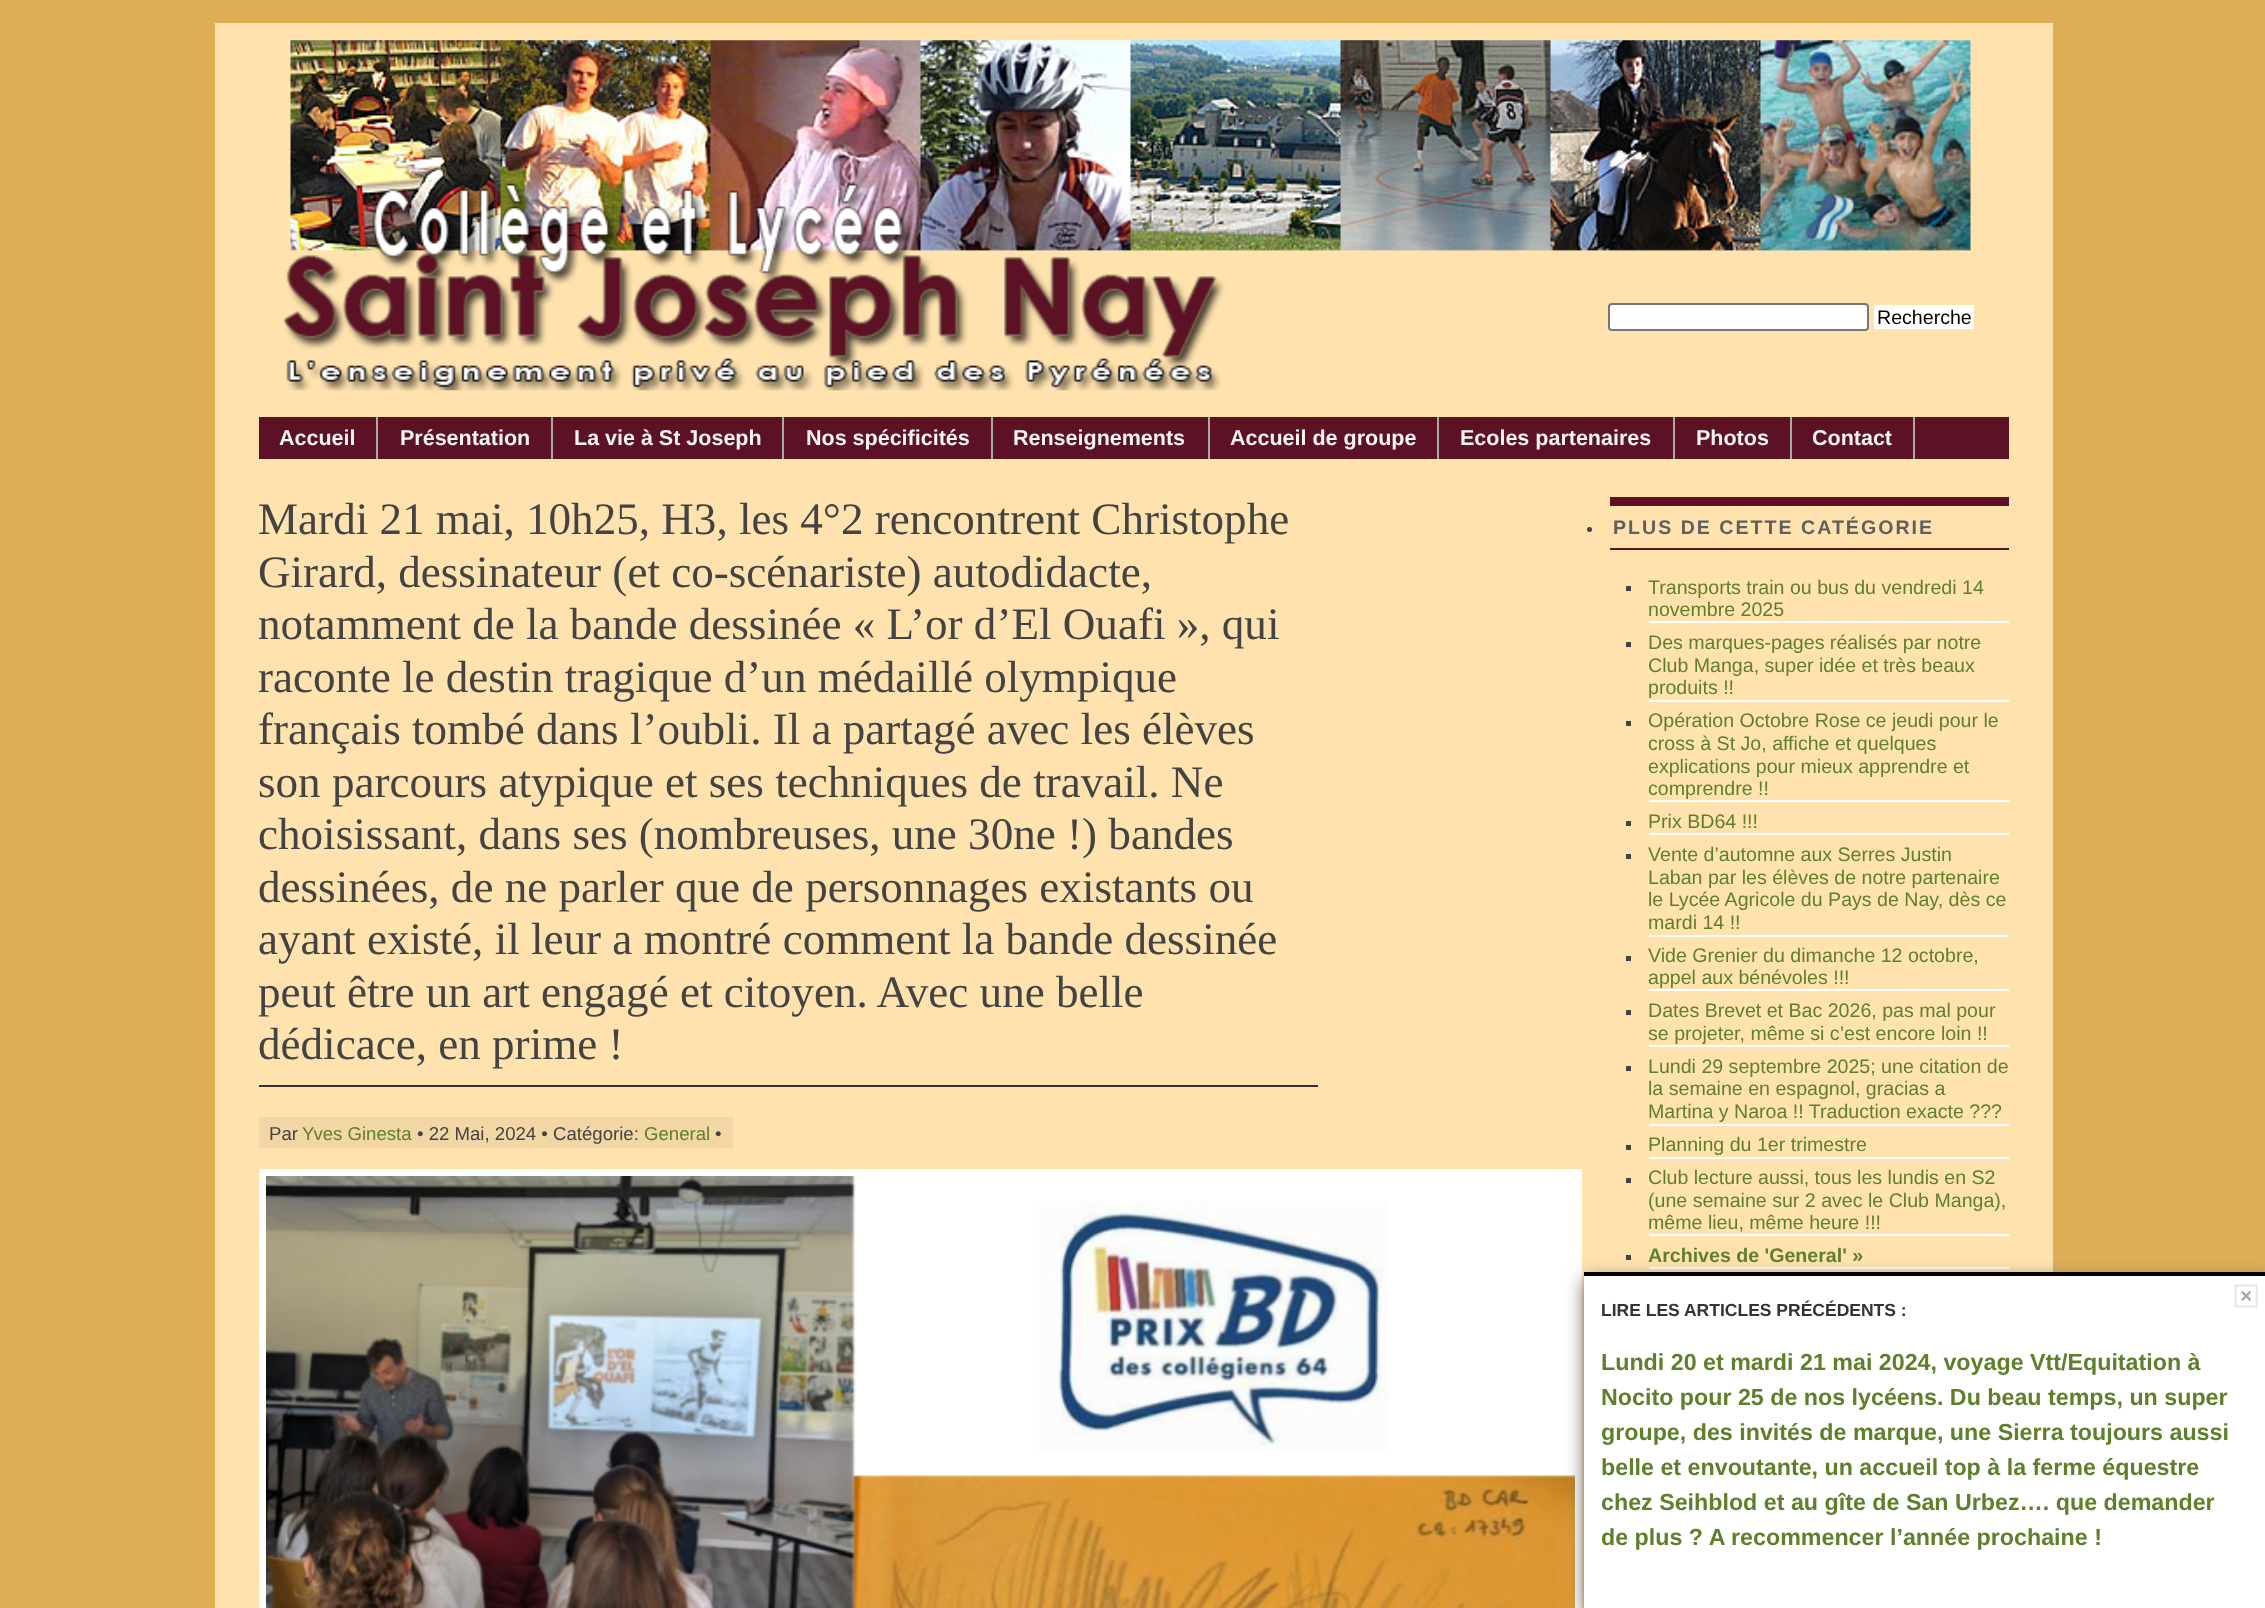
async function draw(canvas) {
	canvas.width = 2265;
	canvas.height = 1608;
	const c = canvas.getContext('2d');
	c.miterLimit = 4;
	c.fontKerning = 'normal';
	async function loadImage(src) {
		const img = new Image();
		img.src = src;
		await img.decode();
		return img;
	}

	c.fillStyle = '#deae57';
	c.fillRect(0, 0, 2265, 1608);
	c.fillStyle = '#ffe2ae';
	c.fillRect(215, 23, 1838, 1585);
	c.drawImage(await loadImage('img1.png'), 283, 40, 1688, 351);
	c.fillStyle = '#fff';
	c.beginPath();
	c.roundRect(1609, 304, 259, 26, 3);
	c.fill();
	c.strokeStyle = '#767676';
	c.lineWidth = 2;
	c.stroke();
	c.fillRect(1874, 305, 100, 24);
	c.font = '19.6px Liberation Sans';
	c.fillStyle = '#000';
	c.fillText('Recherche', 1877, 324);
	c.fillStyle = '#5c1125';
	c.fillRect(259, 417, 1750, 42);
	c.fillStyle = '#a9a9a9';
	c.fillRect(376, 417, 2, 42);
	c.font = 'bold 21.5px Liberation Sans';
	c.fillStyle = '#f5f5f4';
	c.fillText('Accueil', 279, 445);
	c.fillStyle = '#a9a9a9';
	c.fillRect(551, 417, 2, 42);
	c.fillStyle = '#f5f5f4';
	c.fillText('Présentation', 400, 445);
	c.fillStyle = '#a9a9a9';
	c.fillRect(782, 417, 2, 42);
	c.fillStyle = '#f5f5f4';
	c.fillText('La vie à St Joseph', 574, 445);
	c.fillStyle = '#a9a9a9';
	c.fillRect(991, 417, 2, 42);
	c.fillStyle = '#f5f5f4';
	c.fillText('Nos spécificités', 806, 445);
	c.fillStyle = '#a9a9a9';
	c.fillRect(1208, 417, 2, 42);
	c.fillStyle = '#f5f5f4';
	c.fillText('Renseignements', 1013, 445);
	c.fillStyle = '#a9a9a9';
	c.fillRect(1437, 417, 2, 42);
	c.fillStyle = '#f5f5f4';
	c.fillText('Accueil de groupe', 1230, 445);
	c.fillStyle = '#a9a9a9';
	c.fillRect(1673, 417, 2, 42);
	c.fillStyle = '#f5f5f4';
	c.fillText('Ecoles partenaires', 1460, 445);
	c.fillStyle = '#a9a9a9';
	c.fillRect(1790, 417, 2, 42);
	c.fillStyle = '#f5f5f4';
	c.fillText('Photos', 1696, 445);
	c.fillStyle = '#a9a9a9';
	c.fillRect(1913, 417, 2, 42);
	c.fillStyle = '#f5f5f4';
	c.fillText('Contact', 1812, 445);
	c.fillStyle = '#333';
	c.fillRect(259, 1085, 1059, 2);
	c.font = '45.1px Liberation Serif';
	c.fillStyle = '#444343';
	for (const [text, x, y] of [
		['Mardi 21 mai, 10h25, H3, les 4°2 rencontrent Christophe', 258, 534],
		['Girard, dessinateur (et co-scénariste) autodidacte,', 258, 587],
		['notamment de la bande dessinée « L’or d’El Ouafi », qui', 258, 639],
		['raconte le destin tragique d’un médaillé olympique', 258, 692],
		['français tombé dans l’oubli. Il a partagé avec les élèves', 258, 744],
		['son parcours atypique et ses techniques de travail. Ne', 258, 797],
		['choisissant, dans ses (nombreuses, une 30ne !) bandes', 258, 849],
		['dessinées, de ne parler que de personnages existants ou', 258, 902],
		['ayant existé, il leur a montré comment la bande dessinée', 258, 954],
		['peut être un art engagé et citoyen. Avec une belle', 258, 1007],
		['dédicace, en prime !', 258, 1059],
	]) {
		c.fillText(text, x, y);
	}
	c.fillStyle = '#f2d6a5';
	c.fillRect(259, 1117, 474, 31);
	c.font = '18.6px Liberation Sans';
	c.fillStyle = '#444343';
	c.fillText('Par', 269, 1140);
	c.fillStyle = '#5f802b';
	c.fillText('Yves Ginesta', 302, 1140);
	c.fillStyle = '#444343';
	c.fillText('• 22 Mai, 2024 • Catégorie:', 417, 1140);
	c.fillStyle = '#5f802b';
	c.fillText('General', 644, 1140);
	c.fillStyle = '#444343';
	c.fillText('•', 715, 1140);
	c.fillStyle = '#fff';
	c.fillRect(259, 1169, 1323, 439);
	c.drawImage(await loadImage('img2.png'), 266, 1176, 1309, 432);
	c.fillStyle = '#444343';
	c.beginPath();
	c.arc(1589.5, 529.5, 2.5, 0, 2 * Math.PI);
	c.fill();
	c.fillStyle = '#5c1125';
	c.fillRect(1610, 497, 399, 9);
	c.fillRect(1610, 548, 399, 2);
	c.letterSpacing = '2px';
	c.font = 'bold 19.6px Liberation Sans';
	c.fillStyle = '#5f5f5f';
	c.fillText('PLUS DE CETTE CATÉGORIE', 1613, 534);
	c.fillStyle = '#fff';
	c.fillRect(1649, 621, 360, 2);
	c.fillStyle = '#444343';
	c.fillRect(1626, 586, 5, 5);
	c.letterSpacing = '0px';
	c.font = '19.6px Liberation Sans';
	c.fillStyle = '#5f802b';
	c.fillText('Transports train ou bus du vendredi 14', 1648, 594);
	c.fillText('novembre 2025', 1648, 616);
	c.fillStyle = '#fff';
	c.fillRect(1649, 700, 360, 2);
	c.fillStyle = '#444343';
	c.fillRect(1626, 642, 5, 5);
	c.fillStyle = '#5f802b';
	for (const [text, x, y] of [
		['Des marques-pages réalisés par notre', 1648, 649],
		['Club Manga, super idée et très beaux', 1648, 672],
		['produits !!', 1648, 694],
	]) {
		c.fillText(text, x, y);
	}
	c.fillStyle = '#fff';
	c.fillRect(1649, 800, 360, 2);
	c.fillStyle = '#444343';
	c.fillRect(1626, 721, 5, 5);
	c.fillStyle = '#5f802b';
	for (const [text, x, y] of [
		['Opération Octobre Rose ce jeudi pour le', 1648, 727],
		['cross à St Jo, affiche et quelques', 1648, 750],
		['explications pour mieux apprendre et', 1648, 773],
		['comprendre !!', 1648, 795],
	]) {
		c.fillText(text, x, y);
	}
	c.fillStyle = '#fff';
	c.fillRect(1649, 833, 360, 2);
	c.fillStyle = '#444343';
	c.fillRect(1626, 821, 5, 5);
	c.fillStyle = '#5f802b';
	c.fillText('Prix BD64 !!!', 1648, 828);
	c.fillStyle = '#fff';
	c.fillRect(1649, 935, 360, 2);
	c.fillStyle = '#444343';
	c.fillRect(1626, 854, 5, 5);
	c.fillStyle = '#5f802b';
	for (const [text, x, y] of [
		['Vente d’automne aux Serres Justin', 1648, 861],
		['Laban par les élèves de notre partenaire', 1648, 884],
		['le Lycée Agricole du Pays de Nay, dès ce', 1648, 906],
		['mardi 14 !!', 1648, 929],
	]) {
		c.fillText(text, x, y);
	}
	c.fillStyle = '#fff';
	c.fillRect(1649, 989, 360, 2);
	c.fillStyle = '#444343';
	c.fillRect(1626, 956, 5, 5);
	c.fillStyle = '#5f802b';
	c.fillText('Vide Grenier du dimanche 12 octobre,', 1648, 962);
	c.fillText('appel aux bénévoles !!!', 1648, 984);
	c.fillStyle = '#fff';
	c.fillRect(1649, 1045, 360, 2);
	c.fillStyle = '#444343';
	c.fillRect(1626, 1010, 5, 5);
	c.fillStyle = '#5f802b';
	c.fillText('Dates Brevet et Bac 2026, pas mal pour', 1648, 1017);
	c.fillText('se projeter, même si c’est encore loin !!', 1648, 1040);
	c.fillStyle = '#fff';
	c.fillRect(1649, 1124, 360, 2);
	c.fillStyle = '#444343';
	c.fillRect(1626, 1066, 5, 5);
	c.fillStyle = '#5f802b';
	for (const [text, x, y] of [
		['Lundi 29 septembre 2025; une citation de', 1648, 1073],
		['la semaine en espagnol, gracias a', 1648, 1095],
		['Martina y Naroa !! Traduction exacte ???', 1648, 1118],
	]) {
		c.fillText(text, x, y);
	}
	c.fillStyle = '#fff';
	c.fillRect(1649, 1157, 360, 2);
	c.fillStyle = '#444343';
	c.fillRect(1626, 1145, 5, 5);
	c.fillStyle = '#5f802b';
	c.fillText('Planning du 1er trimestre', 1648, 1151);
	c.fillStyle = '#fff';
	c.fillRect(1649, 1234, 360, 2);
	c.fillStyle = '#444343';
	c.fillRect(1626, 1178, 5, 5);
	c.fillStyle = '#5f802b';
	for (const [text, x, y] of [
		['Club lecture aussi, tous les lundis en S2', 1648, 1184],
		['(une semaine sur 2 avec le Club Manga),', 1648, 1207],
		['même lieu, même heure !!!', 1648, 1229],
	]) {
		c.fillText(text, x, y);
	}
	c.fillStyle = '#fff';
	c.fillRect(1649, 1267, 360, 2);
	c.fillStyle = '#444343';
	c.fillRect(1626, 1255, 5, 5);
	c.font = 'bold 19.6px Liberation Sans';
	c.fillStyle = '#5f802b';
	c.fillText('Archives de \'General\' »', 1648, 1262);
	c.fillStyle = '#666';
	c.filter = 'blur(9px)';
	c.beginPath();
	c.rect(1584, 1279, 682, 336);
	c.fill();
	c.filter = 'none';
	c.fillStyle = '#fff';
	c.fillRect(1584, 1276, 681, 332);
	c.fillStyle = '#000';
	c.fillRect(1584, 1272, 681, 4);
	c.font = 'bold 17.5px Liberation Sans';
	c.fillStyle = '#333';
	c.fillText('LIRE LES ARTICLES PRÉCÉDENTS :', 1601, 1316);
	c.drawImage(await loadImage('img3.png'), 2234, 1284, 24, 24);
	c.font = 'bold 23.25px Liberation Sans';
	c.fillStyle = '#5f802b';
	for (const [text, x, y] of [
		['Lundi 20 et mardi 21 mai 2024, voyage Vtt/Equitation à', 1601, 1370],
		['Nocito pour 25 de nos lycéens. Du beau temps, un super', 1601, 1405],
		['groupe, des invités de marque, une Sierra toujours aussi', 1601, 1440],
		['belle et envoutante, un accueil top à la ferme équestre', 1601, 1475],
		['chez Seihblod et au gîte de San Urbez…. que demander', 1601, 1510],
		['de plus ? A recommencer l’année prochaine !', 1601, 1545],
	]) {
		c.fillText(text, x, y);
	}
}

draw(document.querySelector('canvas'));
